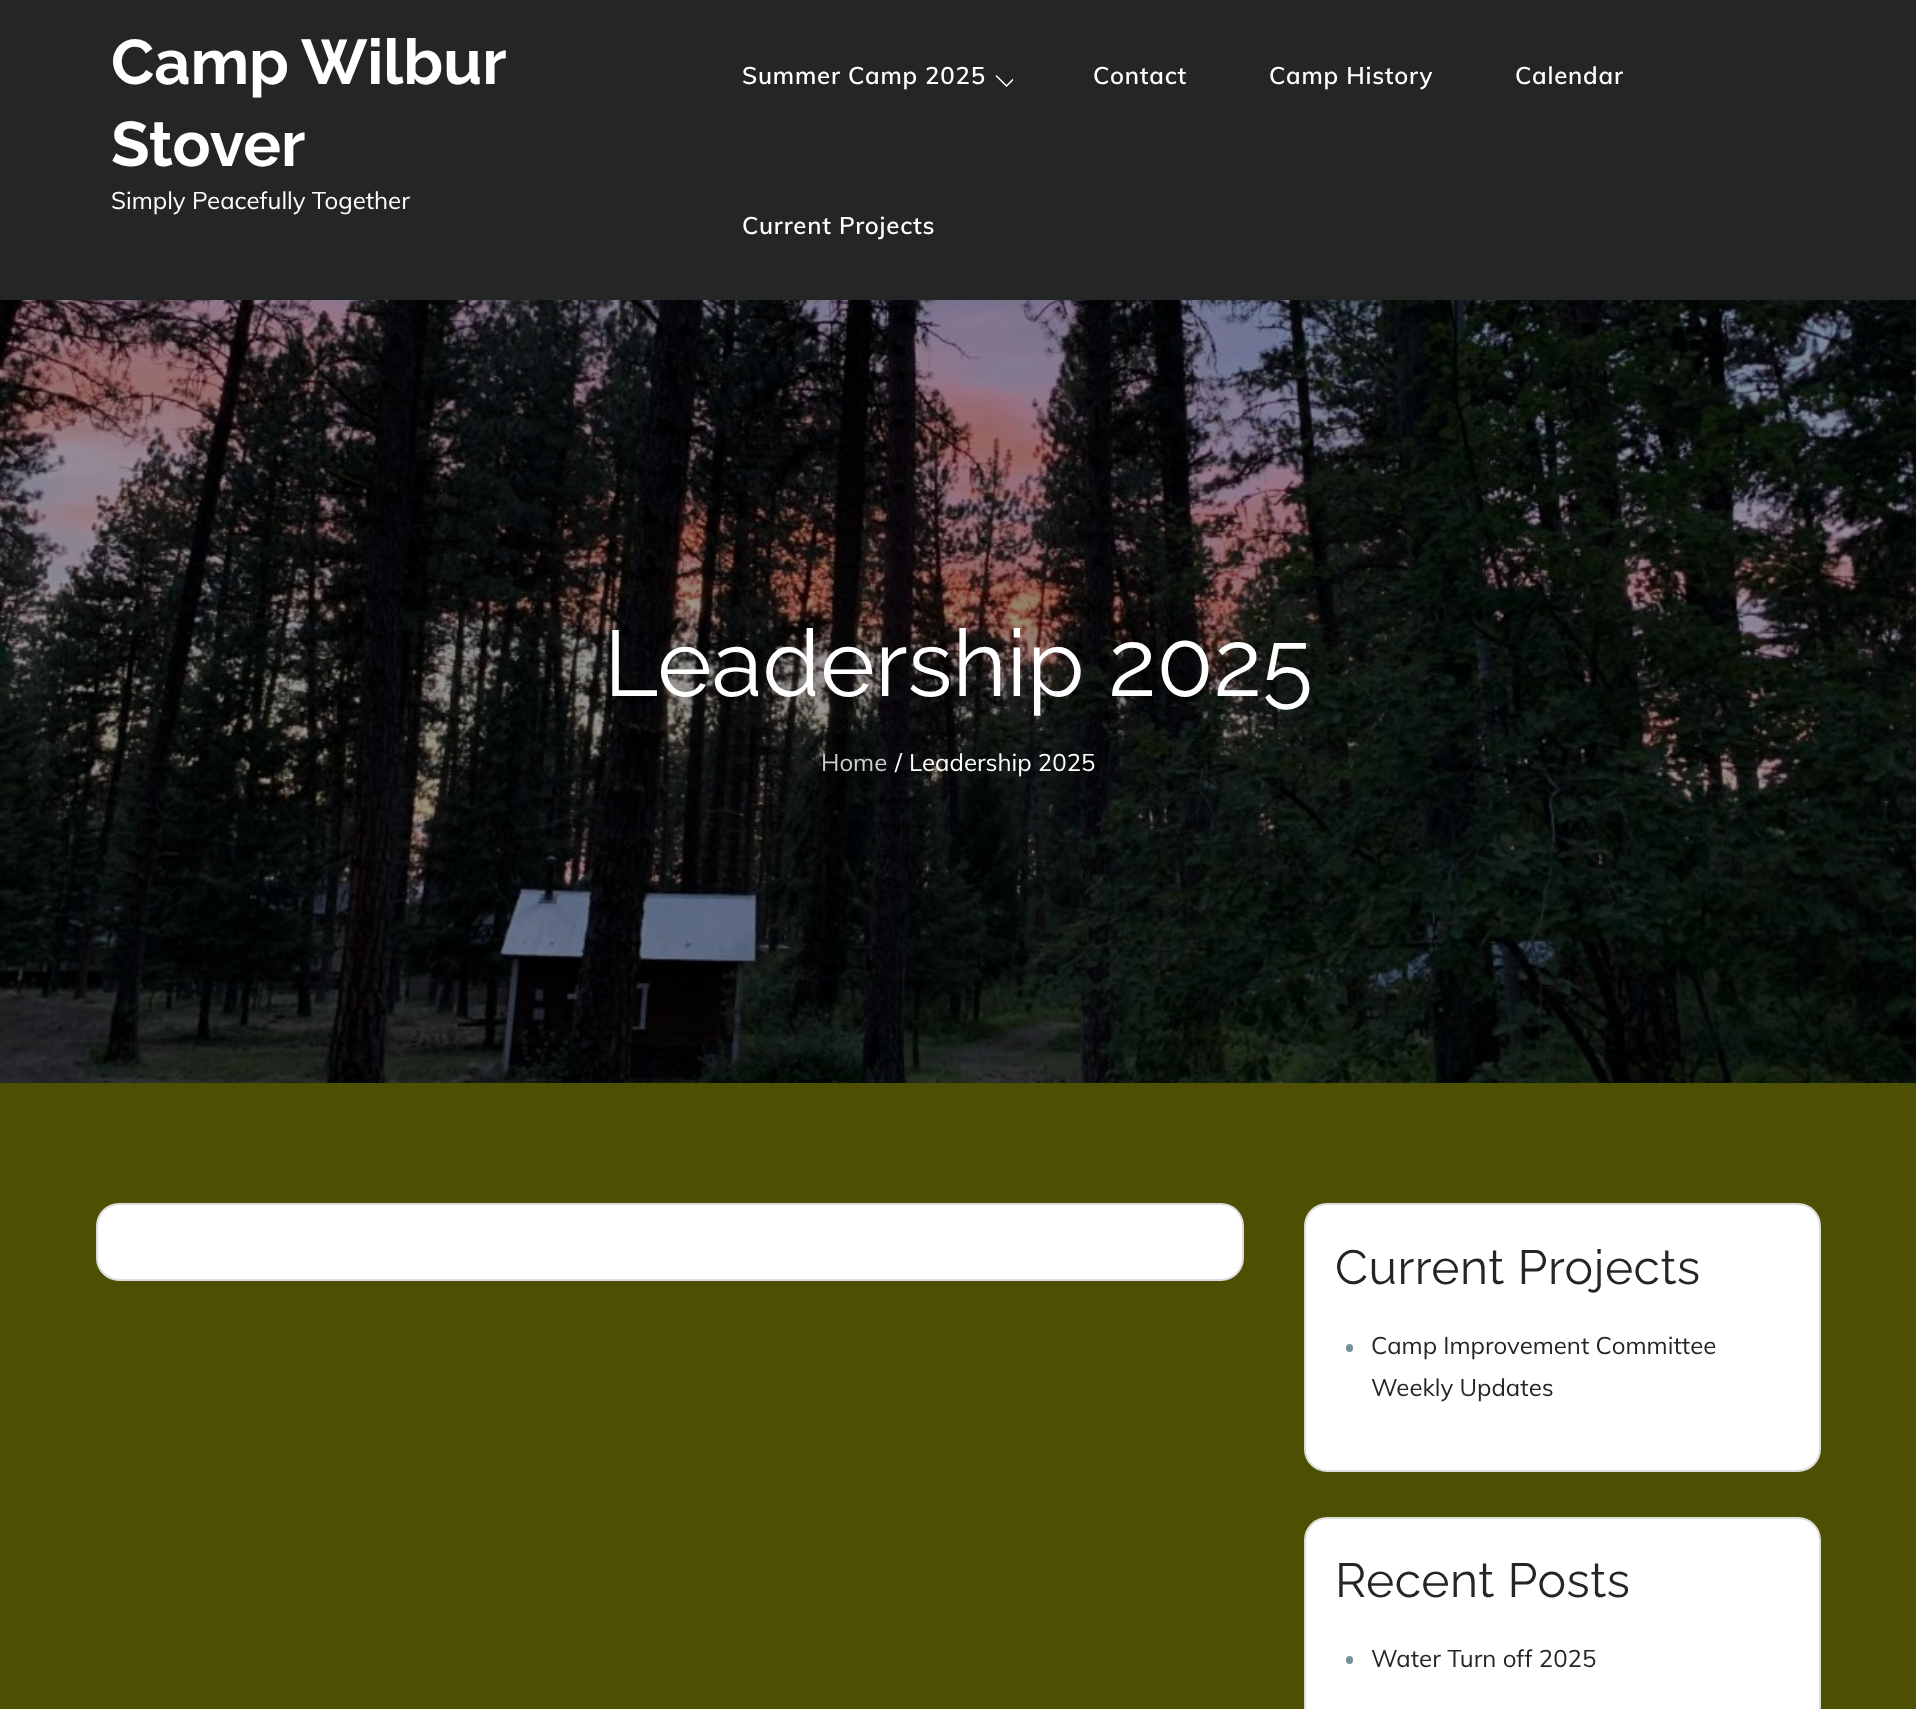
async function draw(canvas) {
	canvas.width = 1916;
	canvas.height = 1709;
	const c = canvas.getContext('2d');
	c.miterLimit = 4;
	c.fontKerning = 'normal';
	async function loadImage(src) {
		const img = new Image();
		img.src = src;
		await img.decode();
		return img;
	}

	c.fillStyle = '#4d4f03';
	c.fillRect(0, 0, 1916, 1709);
	c.fillStyle = '#242625';
	c.fillRect(0, 0, 1916, 300);
	c.wordSpacing = '-1px';
	c.font = 'bold 63px Raleway';
	c.fillStyle = '#fff';
	c.fillText('Camp Wilbur', 111, 84);
	c.wordSpacing = '0px';
	c.fillText('Stover', 111, 166);
	c.font = '24px Muli';
	c.fillText('Simply Peacefully Together', 111, 209);
	c.letterSpacing = '0.8px';
	c.font = '600 24px Muli';
	c.fillText('Summer Camp 2025', 742, 84);
	c.drawImage(await loadImage('img1.png'), 995, 75, 18, 12);
	for (const [text, x, y] of [
		['Contact', 1093, 84],
		['Camp History', 1269, 84],
		['Calendar', 1515, 84],
		['Current Projects', 742, 234],
	]) {
		c.fillText(text, x, y);
	}
	c.drawImage(await loadImage('img2.png'), 0, 300, 1916, 783);
	c.letterSpacing = '0px';
	c.font = '93px Raleway';
	c.fillText('Leadership 2025', 604, 696);
	c.font = '24px Muli';
	c.fillStyle = '#cecece';
	c.fillText('Home', 821, 771);
	c.fillStyle = '#fff';
	c.fillText('/', 895, 771);
	c.fillText('Leadership 2025', 909, 771);
	c.beginPath();
	c.roundRect(97, 1204, 1146, 76, 22);
	c.fill();
	c.strokeStyle = '#dcdcdc';
	c.lineWidth = 2;
	c.stroke();
	c.beginPath();
	c.roundRect(1305, 1204, 515, 267, 22);
	c.fill();
	c.stroke();
	c.letterSpacing = '0.5px';
	c.font = '48px Raleway';
	c.fillStyle = '#242625';
	c.fillText('Current Projects', 1335, 1284);
	c.fillStyle = '#75939b';
	c.beginPath();
	c.roundRect(1346, 1344, 7, 8, 3.5);
	c.fill();
	c.letterSpacing = '0px';
	c.font = '24px Muli';
	c.fillStyle = '#242625';
	c.fillText('Camp Improvement Committee', 1371, 1354);
	c.fillText('Weekly Updates', 1371, 1396);
	c.fillStyle = '#fff';
	c.beginPath();
	c.roundRect(1305, 1518, 515, 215, 22);
	c.fill();
	c.stroke();
	c.letterSpacing = '0.5px';
	c.font = '48px Raleway';
	c.fillStyle = '#242625';
	c.fillText('Recent Posts', 1335, 1597);
	c.fillStyle = '#75939b';
	c.beginPath();
	c.roundRect(1346, 1656, 7, 8, 3.5);
	c.fill();
	c.letterSpacing = '0px';
	c.font = '24px Muli';
	c.fillStyle = '#242625';
	c.fillText('Water Turn off 2025', 1371, 1667);
}

draw(document.querySelector('canvas'));
